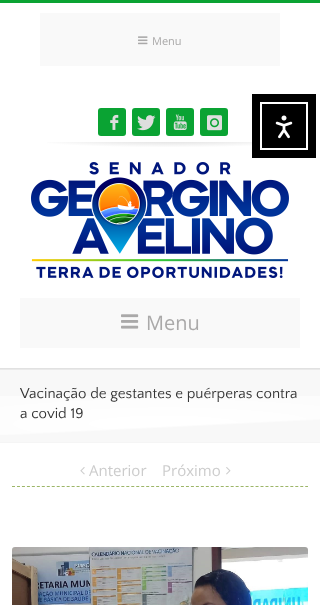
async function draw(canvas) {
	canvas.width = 320;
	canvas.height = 605;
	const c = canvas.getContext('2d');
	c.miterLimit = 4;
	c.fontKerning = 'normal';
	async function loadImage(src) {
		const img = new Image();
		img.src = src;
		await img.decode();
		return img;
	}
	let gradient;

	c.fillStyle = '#fff';
	c.fillRect(0, 0, 320, 605);
	c.fillStyle = '#0aa333';
	c.fillRect(0, 0, 320, 3);
	c.fillStyle = '#f9f9f9';
	c.fillRect(40, 13, 240, 53);
	c.drawImage(await loadImage('img1.png'), 138, 36, 10, 9);
	c.font = '11px Open Sans';
	c.fillStyle = '#aaa9a9';
	c.fillText('Menu', 152, 45);
	c.fillStyle = '#0aa333';
	c.beginPath();
	c.roundRect(98, 108, 28, 28, 3);
	c.fill();
	c.drawImage(await loadImage('img2.png'), 110, 114, 9, 16);
	c.beginPath();
	c.roundRect(132, 108, 28, 28, 3);
	c.fill();
	c.drawImage(await loadImage('img3.png'), 137, 115, 19, 16);
	c.beginPath();
	c.roundRect(166, 108, 28, 28, 3);
	c.fill();
	c.drawImage(await loadImage('img4.png'), 173, 114, 14, 17);
	c.beginPath();
	c.roundRect(200, 108, 28, 28, 3);
	c.fill();
	c.drawImage(await loadImage('img5.png'), 207, 115, 15, 16);
	gradient = c.createRadialGradient(170, 2416.46, 0, 170, 2416.46, 226);
	gradient.addColorStop(0, '#d9d9d9');
	gradient.addColorStop(0.65, '#fff');
	c.fillStyle = gradient;
	c.beginPath();
	c.rect(47, 142, 246, 5);
	c.save();
	c.clip();
	c.scale(1, 13 / 226);
	c.fillRect(0, 0, 320, 10518);
	c.restore();
	c.fillStyle = '#e1e1e1';
	c.fillRect(0, 368, 320, 1);
	c.drawImage(await loadImage('img6.png'), 31, 162, 258, 116);
	c.fillStyle = '#f9f9f9';
	c.fillRect(20, 298, 280, 50);
	c.drawImage(await loadImage('img7.png'), 121, 314, 18, 15);
	c.font = '20px Open Sans';
	c.fillStyle = '#aaa9a9';
	c.fillText('Menu', 146, 330);
	c.fillStyle = '#e9e9e9';
	c.fillRect(0, 369, 320, 1);
	c.fillStyle = '#f8f8f8';
	c.fillRect(0, 370, 320, 72);
	c.drawImage(await loadImage('img8.png'), 0, 396, 320, 39);
	c.fillStyle = '#f5f5f5';
	c.fillRect(0, 442, 320, 1);
	c.font = '15px Quattrocento Sans';
	c.fillStyle = '#333';
	c.fillText('Vacinação de gestantes e puérperas contra', 20, 398);
	c.fillText('a covid 19', 20, 418);
	c.beginPath();
	c.moveTo(12, 486.5);
	c.lineTo(308, 486.5);
	c.strokeStyle = '#9db668';
	c.setLineDash([3, 1.97]);
	c.stroke();
	c.drawImage(await loadImage('img9.png'), 80, 467, 5, 8);
	c.font = '15px Open Sans';
	c.fillStyle = '#ccc';
	c.fillText('Anterior', 89, 476);
	c.fillText('Próximo', 162, 476);
	c.drawImage(await loadImage('img10.png'), 226, 467, 5, 8);
	c.drawImage(await loadImage('img11.png'), 12, 547, 296, 58);
	c.fillStyle = '#000';
	c.fillRect(252, 94, 64, 64);
	c.strokeStyle = '#fff';
	c.lineWidth = 2;
	c.setLineDash([]);
	c.strokeRect(261, 103, 46, 46);
	c.drawImage(await loadImage('img12.png'), 275, 115, 18, 24);
}

draw(document.querySelector('canvas'));
